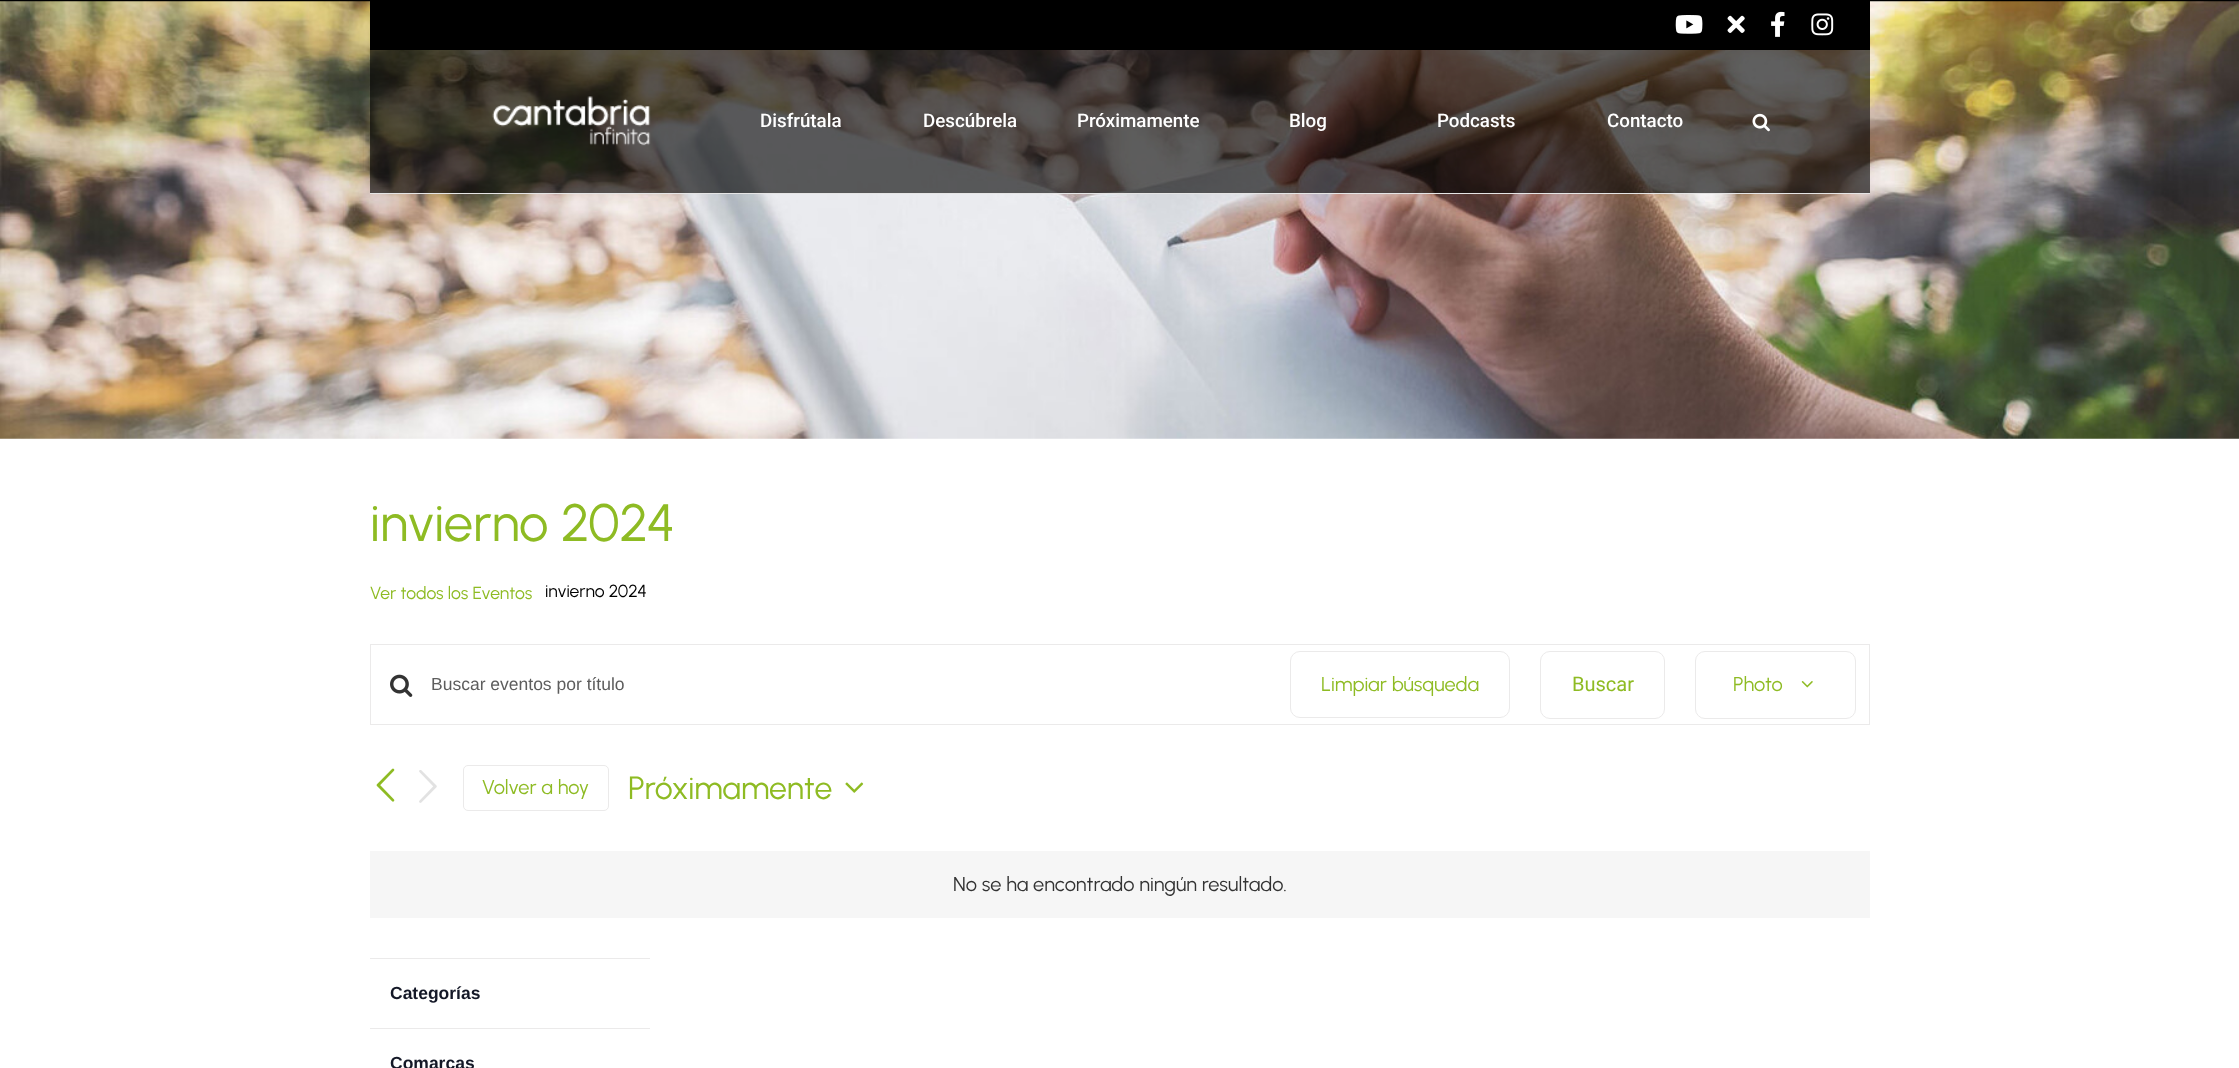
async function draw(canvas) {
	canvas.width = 2239;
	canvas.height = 1068;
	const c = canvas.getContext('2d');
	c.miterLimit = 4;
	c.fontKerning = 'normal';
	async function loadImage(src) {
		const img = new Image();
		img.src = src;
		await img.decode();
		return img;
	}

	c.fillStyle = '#fff';
	c.fillRect(0, 0, 2239, 1068);
	c.fillStyle = '#000';
	c.fillRect(0, 0, 2239, 2);
	c.drawImage(await loadImage('img1.png'), 0, 1, 2239, 438);
	c.fillStyle = '#00000063';
	c.fillRect(370, 50, 1500, 143);
	c.fillStyle = '#000';
	c.fillRect(370, 1, 1500, 49);
	c.drawImage(await loadImage('img2.png'), 1675, 15, 28, 19);
	c.drawImage(await loadImage('img3.png'), 1727, 15, 18, 18);
	c.drawImage(await loadImage('img4.png'), 1771, 11, 14, 26);
	c.drawImage(await loadImage('img5.png'), 1811, 13, 23, 23);
	c.fillStyle = '#00000063';
	c.fillRect(370, 50, 1500, 143);
	c.fillStyle = '#e5e5e5';
	c.fillRect(370, 193, 1500, 1);
	c.drawImage(await loadImage('img6.png'), 492, 96, 159, 50);
	c.font = '500 18.75px Roboto';
	c.fillStyle = '#fff';
	for (const [text, x, y] of [
		['Disfrútala', 760, 127],
		['Descúbrela', 923, 127],
		['Próximamente', 1077, 127],
		['Blog', 1289, 127],
		['Podcasts', 1437, 127],
		['Contacto', 1607, 127],
	]) {
		c.fillText(text, x, y);
	}
	c.drawImage(await loadImage('img7.png'), 1752, 113, 18, 19);
	c.font = '52.5px Urbanist';
	c.fillStyle = '#8ebb23';
	c.fillText('invierno 2024', 370, 541);
	c.font = '17.5px Urbanist';
	c.fillText('Ver todos los Eventos', 370, 599);
	c.fillStyle = '#000';
	c.fillText('invierno 2024', 545, 597);
	c.strokeStyle = '#ebeaea';
	c.strokeRect(370.5, 644.5, 1499, 80);
	c.drawImage(await loadImage('img8.png'), 390, 674, 23, 23);
	c.font = '17.5px Liberation Sans';
	c.fillStyle = '#5d5d5d';
	c.fillText('Buscar eventos por título', 431, 690);
	c.beginPath();
	c.roundRect(1290.5, 651.5, 219, 66, 9.5);
	c.stroke();
	c.font = '20px Urbanist';
	c.fillStyle = '#8ebb23';
	c.fillText('Limpiar búsqueda', 1321, 691);
	c.beginPath();
	c.roundRect(1540.5, 651.5, 124, 67, 9.5);
	c.stroke();
	c.font = '20px Roboto';
	c.fillText('Buscar', 1572, 691);
	c.beginPath();
	c.roundRect(1695.5, 651.5, 160, 67, 9.5);
	c.stroke();
	c.font = '20px Urbanist';
	c.fillText('Photo', 1733, 691);
	c.drawImage(await loadImage('img9.png'), 1801, 681, 12, 7);
	c.drawImage(await loadImage('img10.png'), 376, 768, 19, 34);
	c.drawImage(await loadImage('img11.png'), 419, 770, 18, 33);
	c.beginPath();
	c.roundRect(463.5, 765.5, 145, 45, 4.5);
	c.stroke();
	c.fillText('Volver a hoy', 482, 794);
	c.font = '32px Urbanist';
	c.fillText('Próximamente', 628, 799);
	c.drawImage(await loadImage('img12.png'), 845, 782, 19, 11);
	c.fillStyle = '#f6f6f6';
	c.fillRect(370, 851, 1500, 67);
	c.font = '20px Urbanist';
	c.fillStyle = '#333';
	c.fillText('No se ha encontrado ningún resultado.', 953, 891);
	c.fillStyle = '#ebeaea';
	c.fillRect(370, 958, 280, 1);
	c.font = 'bold 17.5px Liberation Sans';
	c.fillStyle = '#141827';
	c.fillText('Categorías', 390, 999);
	c.fillStyle = '#ebeaea';
	c.fillRect(370, 1028, 280, 1);
	c.fillStyle = '#141827';
	c.fillText('Comarcas', 390, 1069);
}

draw(document.querySelector('canvas'));
